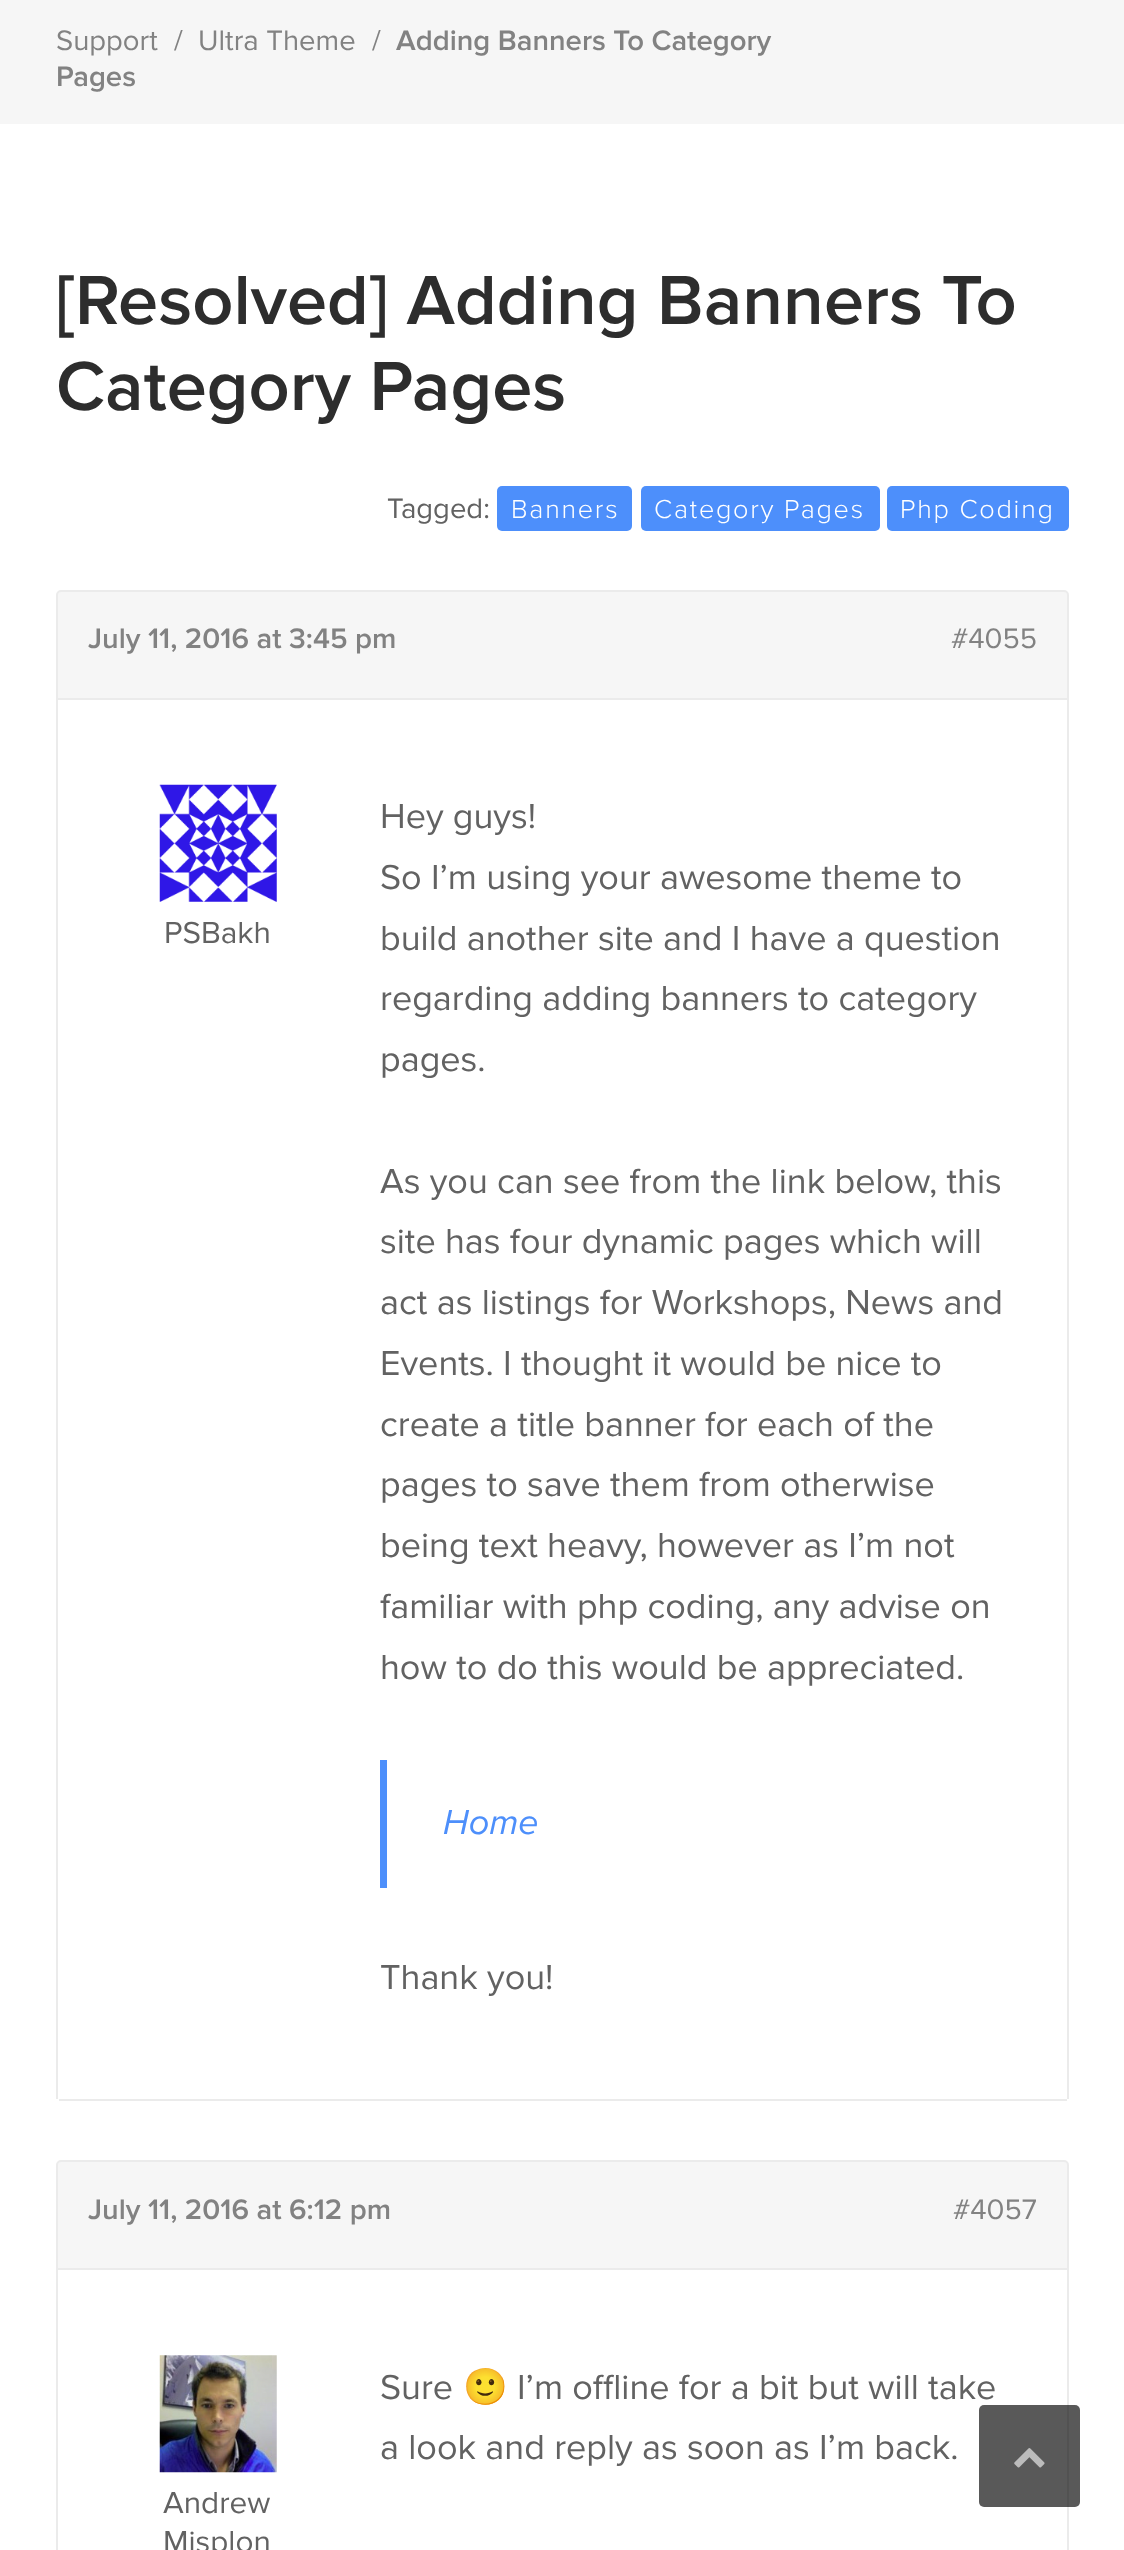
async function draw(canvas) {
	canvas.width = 1124;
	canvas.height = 2550;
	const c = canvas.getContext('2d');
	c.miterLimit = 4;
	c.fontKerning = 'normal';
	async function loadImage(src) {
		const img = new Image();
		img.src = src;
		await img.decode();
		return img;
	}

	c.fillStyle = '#fff';
	c.fillRect(0, 0, 1124, 2550);
	c.fillStyle = '#f6f6f6';
	c.fillRect(0, 0, 1124, 124);
	c.font = '29.25px Proxima Nova';
	c.fillStyle = '#828282';
	for (const [text, x, y] of [
		['Support', 56, 50],
		['/', 174, 50],
		['Ultra Theme', 198, 50],
		['/', 372, 50],
	]) {
		c.fillText(text, x, y);
	}
	c.font = '600 29.25px Proxima Nova';
	c.fillText('Adding Banners To Category', 396, 50);
	c.fillText('Pages', 56, 86);
	c.font = '600 72px Proxima Nova';
	c.fillStyle = '#2d2d2d';
	c.fillText('[Resolved] Adding Banners To', 56, 324);
	c.fillText('Category Pages', 56, 410);
	c.font = '29.25px Proxima Nova';
	c.fillStyle = '#626262';
	c.fillText('Tagged:', 387, 518);
	c.fillStyle = '#4d8ffb';
	c.beginPath();
	c.roundRect(497, 486, 135, 45, 5);
	c.fill();
	c.letterSpacing = '1.75px';
	c.font = '300 27px Proxima Nova';
	c.fillStyle = '#fff';
	c.fillText('Banners', 511, 518);
	c.fillStyle = '#4d8ffb';
	c.beginPath();
	c.roundRect(641, 486, 239, 45, 5);
	c.fill();
	c.fillStyle = '#fff';
	c.fillText('Category Pages', 654, 518);
	c.fillStyle = '#4d8ffb';
	c.beginPath();
	c.roundRect(887, 486, 182, 45, 5);
	c.fill();
	c.fillStyle = '#fff';
	c.fillText('Php Coding', 900, 518);
	c.fillStyle = '#f6f6f6';
	c.beginPath();
	c.roundRect(57, 591, 1011, 108, [4, 4, 0, 0]);
	c.fill();
	c.strokeStyle = '#ebebeb';
	c.lineWidth = 2;
	c.stroke();
	c.letterSpacing = '0px';
	c.font = '600 29.25px Proxima Nova';
	c.fillStyle = '#828282';
	c.fillText('July 11, 2016 at 3:45 pm', 88, 648);
	c.font = '29.25px Proxima Nova';
	c.fillText('#4055', 951, 648);
	for (const [x, y, w, h, color] of [
		[1067, 700, 2, 1399, '#ebebeb'],
		[59, 2099, 1008, 2, '#ebebeb'],
		[56, 700, 2, 1399, '#ebebeb'],
	]) {
		c.fillStyle = color;
		c.fillRect(x, y, w, h);
	}
	c.drawImage(await loadImage('img1.png'), 159, 784, 118, 118);
	c.font = '31.5px Proxima Nova';
	c.fillStyle = '#626262';
	c.fillText('PSBakh', 164, 943);
	c.font = '36px Proxima Nova';
	for (const [text, x, y] of [
		['Hey guys!', 380, 828],
		['So I’m using your awesome theme to', 380, 889],
		['build another site and I have a question', 380, 950],
		['regarding adding banners to category', 380, 1010],
		['pages.', 380, 1071],
		['As you can see from the link below, this', 380, 1193],
		['site has four dynamic pages which will', 380, 1253],
		['act as listings for Workshops, News and', 380, 1314],
		['Events. I thought it would be nice to', 380, 1375],
		['create a title banner for each of the', 380, 1436],
		['pages to save them from otherwise', 380, 1496],
		['being text heavy, however as I’m not', 380, 1557],
		['familiar with php coding, any advise on', 380, 1618],
		['how to do this would be appreciated.', 380, 1679],
	]) {
		c.fillText(text, x, y);
	}
	c.fillStyle = '#4d8ffb';
	c.fillRect(380, 1760, 7, 128);
	c.font = 'italic 36px Proxima Nova';
	c.fillText('Home', 443, 1834);
	c.font = '36px Proxima Nova';
	c.fillStyle = '#626262';
	c.fillText('Thank you!', 380, 1989);
	c.fillStyle = '#f6f6f6';
	c.beginPath();
	c.roundRect(57, 2161, 1011, 108, [4, 4, 0, 0]);
	c.fill();
	c.stroke();
	c.font = '600 29.25px Proxima Nova';
	c.fillStyle = '#828282';
	c.fillText('July 11, 2016 at 6:12 pm', 88, 2219);
	c.font = '29.25px Proxima Nova';
	c.fillText('#4057', 953, 2219);
	c.fillStyle = '#ebebeb';
	c.fillRect(1067, 2270, 2, 280);
	c.fillRect(56, 2270, 2, 280);
	c.font = '36px Proxima Nova';
	c.fillStyle = '#626262';
	c.fillText('Sure', 380, 2399);
	c.font = '36px Noto Color Emoji';
	c.fillText('🙂', 463, 2399);
	c.font = '36px Proxima Nova';
	c.fillText('I’m offline for a bit but will take', 517, 2399);
	c.fillText('a look and reply as soon as I’m back.', 380, 2459);
	c.drawImage(await loadImage('img2.png'), 159, 2355, 118, 118);
	c.font = '31.5px Proxima Nova';
	c.fillText('Andrew', 163, 2513);
	c.fillText('Misplon', 163, 2552);
	c.fillStyle = '#000000a6';
	c.beginPath();
	c.roundRect(979, 2405, 101, 102, 5);
	c.fill();
	c.drawImage(await loadImage('img3.png'), 1014, 2448, 31, 20);
}

draw(document.querySelector('canvas'));
